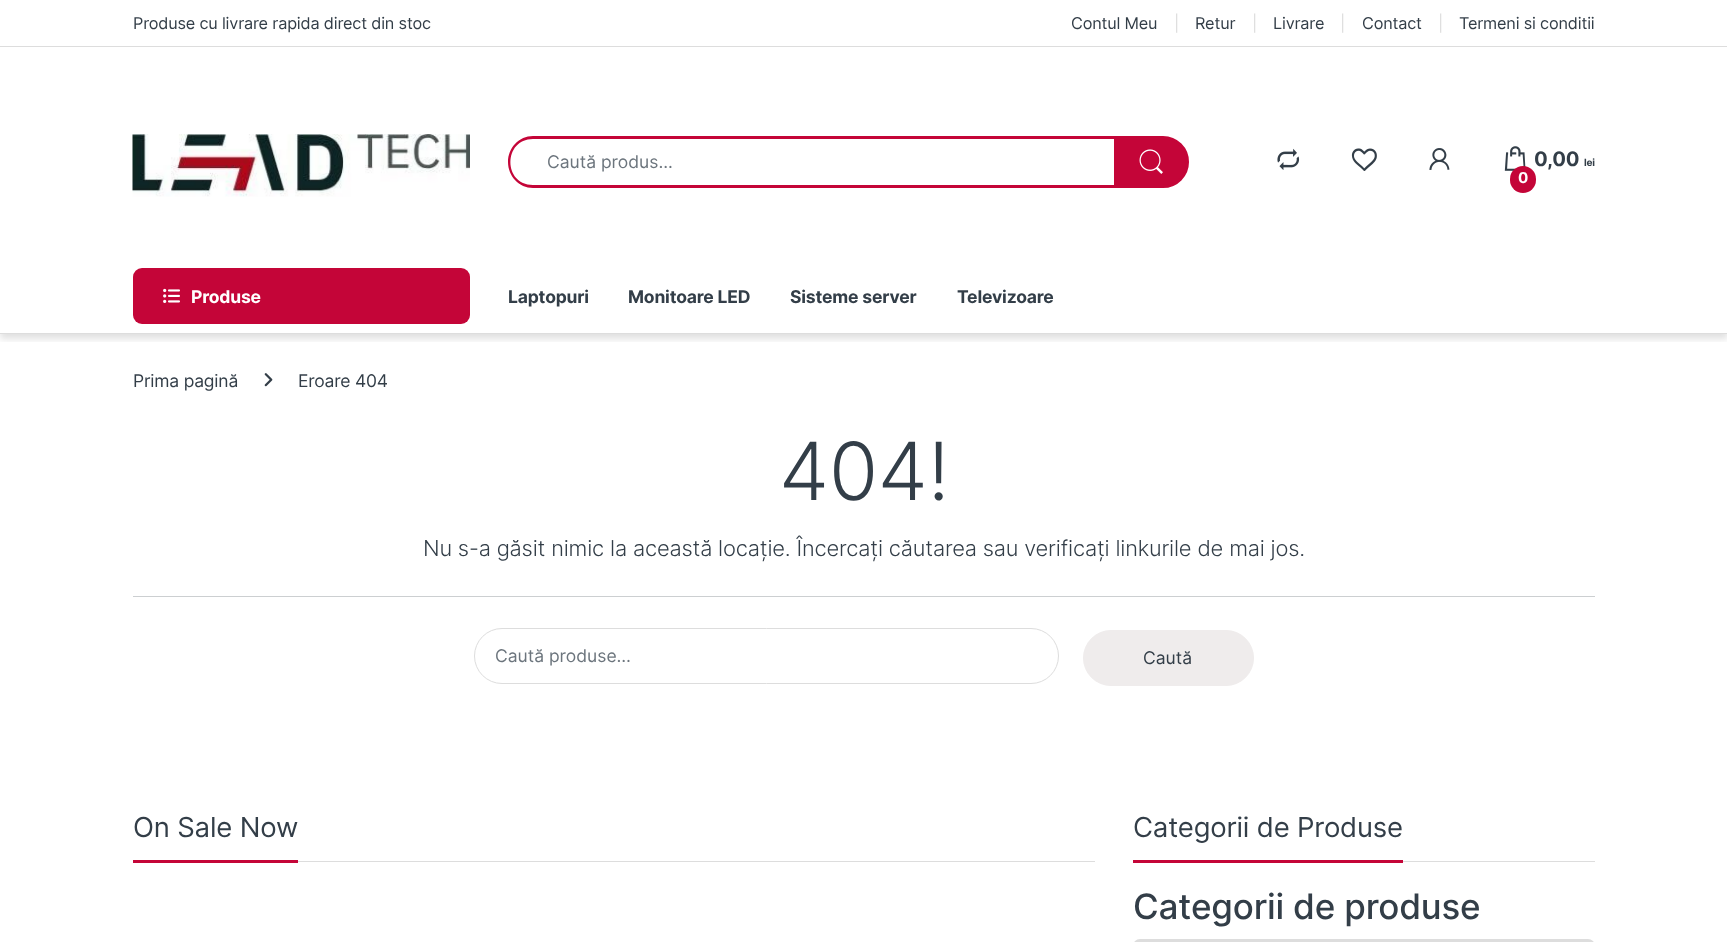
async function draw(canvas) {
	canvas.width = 1727;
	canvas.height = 942;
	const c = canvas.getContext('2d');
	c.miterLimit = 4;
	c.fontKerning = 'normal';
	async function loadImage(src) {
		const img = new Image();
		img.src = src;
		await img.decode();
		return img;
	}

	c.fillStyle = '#fff';
	c.fillRect(0, 0, 1727, 942);
	c.fillStyle = '#ddd';
	c.fillRect(0, 46, 1727, 1);
	c.letterSpacing = '-0.18px';
	c.font = '16.25px Inter';
	c.fillStyle = '#333e48';
	c.fillText('Produse cu livrare rapida direct din stoc', 133, 29);
	c.fillText('Contul Meu', 1071, 29);
	c.fillStyle = '#ddd';
	c.fillText('|', 1174, 29);
	c.fillStyle = '#333e48';
	c.fillText('Retur', 1195, 29);
	c.fillStyle = '#ddd';
	c.fillText('|', 1252, 29);
	c.fillStyle = '#333e48';
	c.fillText('Livrare', 1273, 29);
	c.fillStyle = '#ddd';
	c.fillText('|', 1340, 29);
	c.fillStyle = '#333e48';
	c.fillText('Contact', 1362, 29);
	c.fillStyle = '#ddd';
	c.fillText('|', 1438, 29);
	c.fillStyle = '#333e48';
	c.fillText('Termeni si conditii', 1459, 29);
	c.save();
	c.beginPath();
	c.rect(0, 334, 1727, 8);
	c.clip();
	c.fillStyle = '#0000001f';
	c.filter = 'blur(3.5px)';
	c.beginPath();
	c.rect(0, 53, 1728, 286);
	c.fill();
	c.filter = 'none';
	c.restore();
	c.fillStyle = '#ddd';
	c.fillRect(0, 333, 1727, 1);
	c.drawImage(await loadImage('img1.png'), 132, 134, 338, 63);
	c.fillStyle = '#c40538';
	c.beginPath();
	c.moveTo(533, 136);
	c.lineTo(1115, 136);
	c.lineTo(1115, 188);
	c.lineTo(533, 188);
	c.bezierCurveTo(519, 188, 508, 176, 508, 162);
	c.bezierCurveTo(508, 148, 519, 136, 533, 136);
	c.closePath();
	c.moveTo(533, 139);
	c.lineTo(1115, 139);
	c.lineTo(1115, 185);
	c.lineTo(533, 185);
	c.bezierCurveTo(503, 185, 503, 139, 533, 139);
	c.closePath();
	c.fill('evenodd');
	c.letterSpacing = '0px';
	c.font = '17.5px Inter';
	c.fillStyle = '#6c757d';
	c.fillText('Caută produs...', 547, 168);
	c.fillStyle = '#c40538';
	c.beginPath();
	c.roundRect(1115.5, 137.5, 72, 49, [0, 24.5, 24.5, 0]);
	c.fill();
	c.strokeStyle = '#c40538';
	c.lineWidth = 3;
	c.stroke();
	c.drawImage(await loadImage('img2.png'), 1139, 149, 24, 25);
	c.drawImage(await loadImage('img3.png'), 1277, 148, 23, 22);
	c.drawImage(await loadImage('img4.png'), 1351, 148, 26, 23);
	c.drawImage(await loadImage('img5.png'), 1429, 148, 21, 22);
	c.drawImage(await loadImage('img6.png'), 1504, 146, 22, 25);
	c.letterSpacing = '-0.18px';
	c.font = 'bold 20px Inter';
	c.fillStyle = '#333e48';
	c.fillText('0,00', 1534, 166);
	c.font = 'bold 10px Inter';
	c.fillText('lei', 1584, 166);
	c.fillStyle = '#c40538';
	c.beginPath();
	c.roundRect(1510, 166, 26, 27, 13);
	c.fill();
	c.font = 'bold 15px Inter';
	c.fillStyle = '#fff';
	c.fillText('0', 1518, 183);
	c.fillStyle = '#c40538';
	c.beginPath();
	c.roundRect(133, 268, 337, 56, 9);
	c.fill();
	c.drawImage(await loadImage('img7.png'), 163, 288, 17, 15);
	c.font = 'bold 17.5px Inter';
	c.fillStyle = '#fff';
	c.fillText('Produse', 191, 303);
	c.fillStyle = '#333e48';
	for (const [text, x, y] of [
		['Laptopuri', 508, 303],
		['Monitoare LED', 628, 303],
		['Sisteme server', 790, 303],
		['Televizoare', 957, 303],
	]) {
		c.fillText(text, x, y);
	}
	c.font = '17.5px Inter';
	c.fillText('Prima pagină', 133, 387);
	c.drawImage(await loadImage('img8.png'), 264, 373, 9, 14);
	c.fillText('Eroare 404', 298, 387);
	c.font = '300 80px Inter';
	c.fillText('404!', 779, 500);
	c.font = '300 21.9px Inter';
	c.fillText('Nu s-a găsit nimic la această locație. Încercați căutarea sau verificați linkurile de mai jos.', 423, 556);
	c.fillStyle = '#cccfd1';
	c.fillRect(133, 596, 1462, 1);
	c.beginPath();
	c.roundRect(474.5, 628.5, 584, 55, 27.5);
	c.strokeStyle = '#ddd';
	c.lineWidth = 1;
	c.stroke();
	c.letterSpacing = '0px';
	c.font = '17.5px Inter';
	c.fillStyle = '#6c757d';
	c.fillText('Caută produse…', 495, 662);
	c.fillStyle = '#efecec';
	c.beginPath();
	c.roundRect(1083.5, 630.5, 170, 55, 27.5);
	c.fill();
	c.strokeStyle = '#efecec';
	c.stroke();
	c.fillStyle = '#333e48';
	c.fillText('Caută', 1143, 664);
	c.fillStyle = '#ddd';
	c.fillRect(298, 861, 797, 1);
	c.letterSpacing = '-0.18px';
	c.font = '27.5px Inter';
	c.fillStyle = '#333e48';
	c.fillText('On Sale Now', 133, 837);
	c.fillStyle = '#c40538';
	c.fillRect(133, 860, 165, 3);
	c.fillStyle = '#ddd';
	c.fillRect(1403, 861, 192, 1);
	c.fillStyle = '#333e48';
	c.fillText('Categorii de Produse', 1133, 837);
	c.fillStyle = '#c40538';
	c.fillRect(1133, 860, 270, 3);
	c.font = '500 35px Inter';
	c.fillStyle = '#333e48';
	c.fillText('Categorii de produse', 1133, 919);
	c.beginPath();
	c.roundRect(1134.5, 940.5, 459, 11, 6.5);
	c.strokeStyle = '#ddd';
	c.lineWidth = 3;
	c.stroke();
}

draw(document.querySelector('canvas'));
